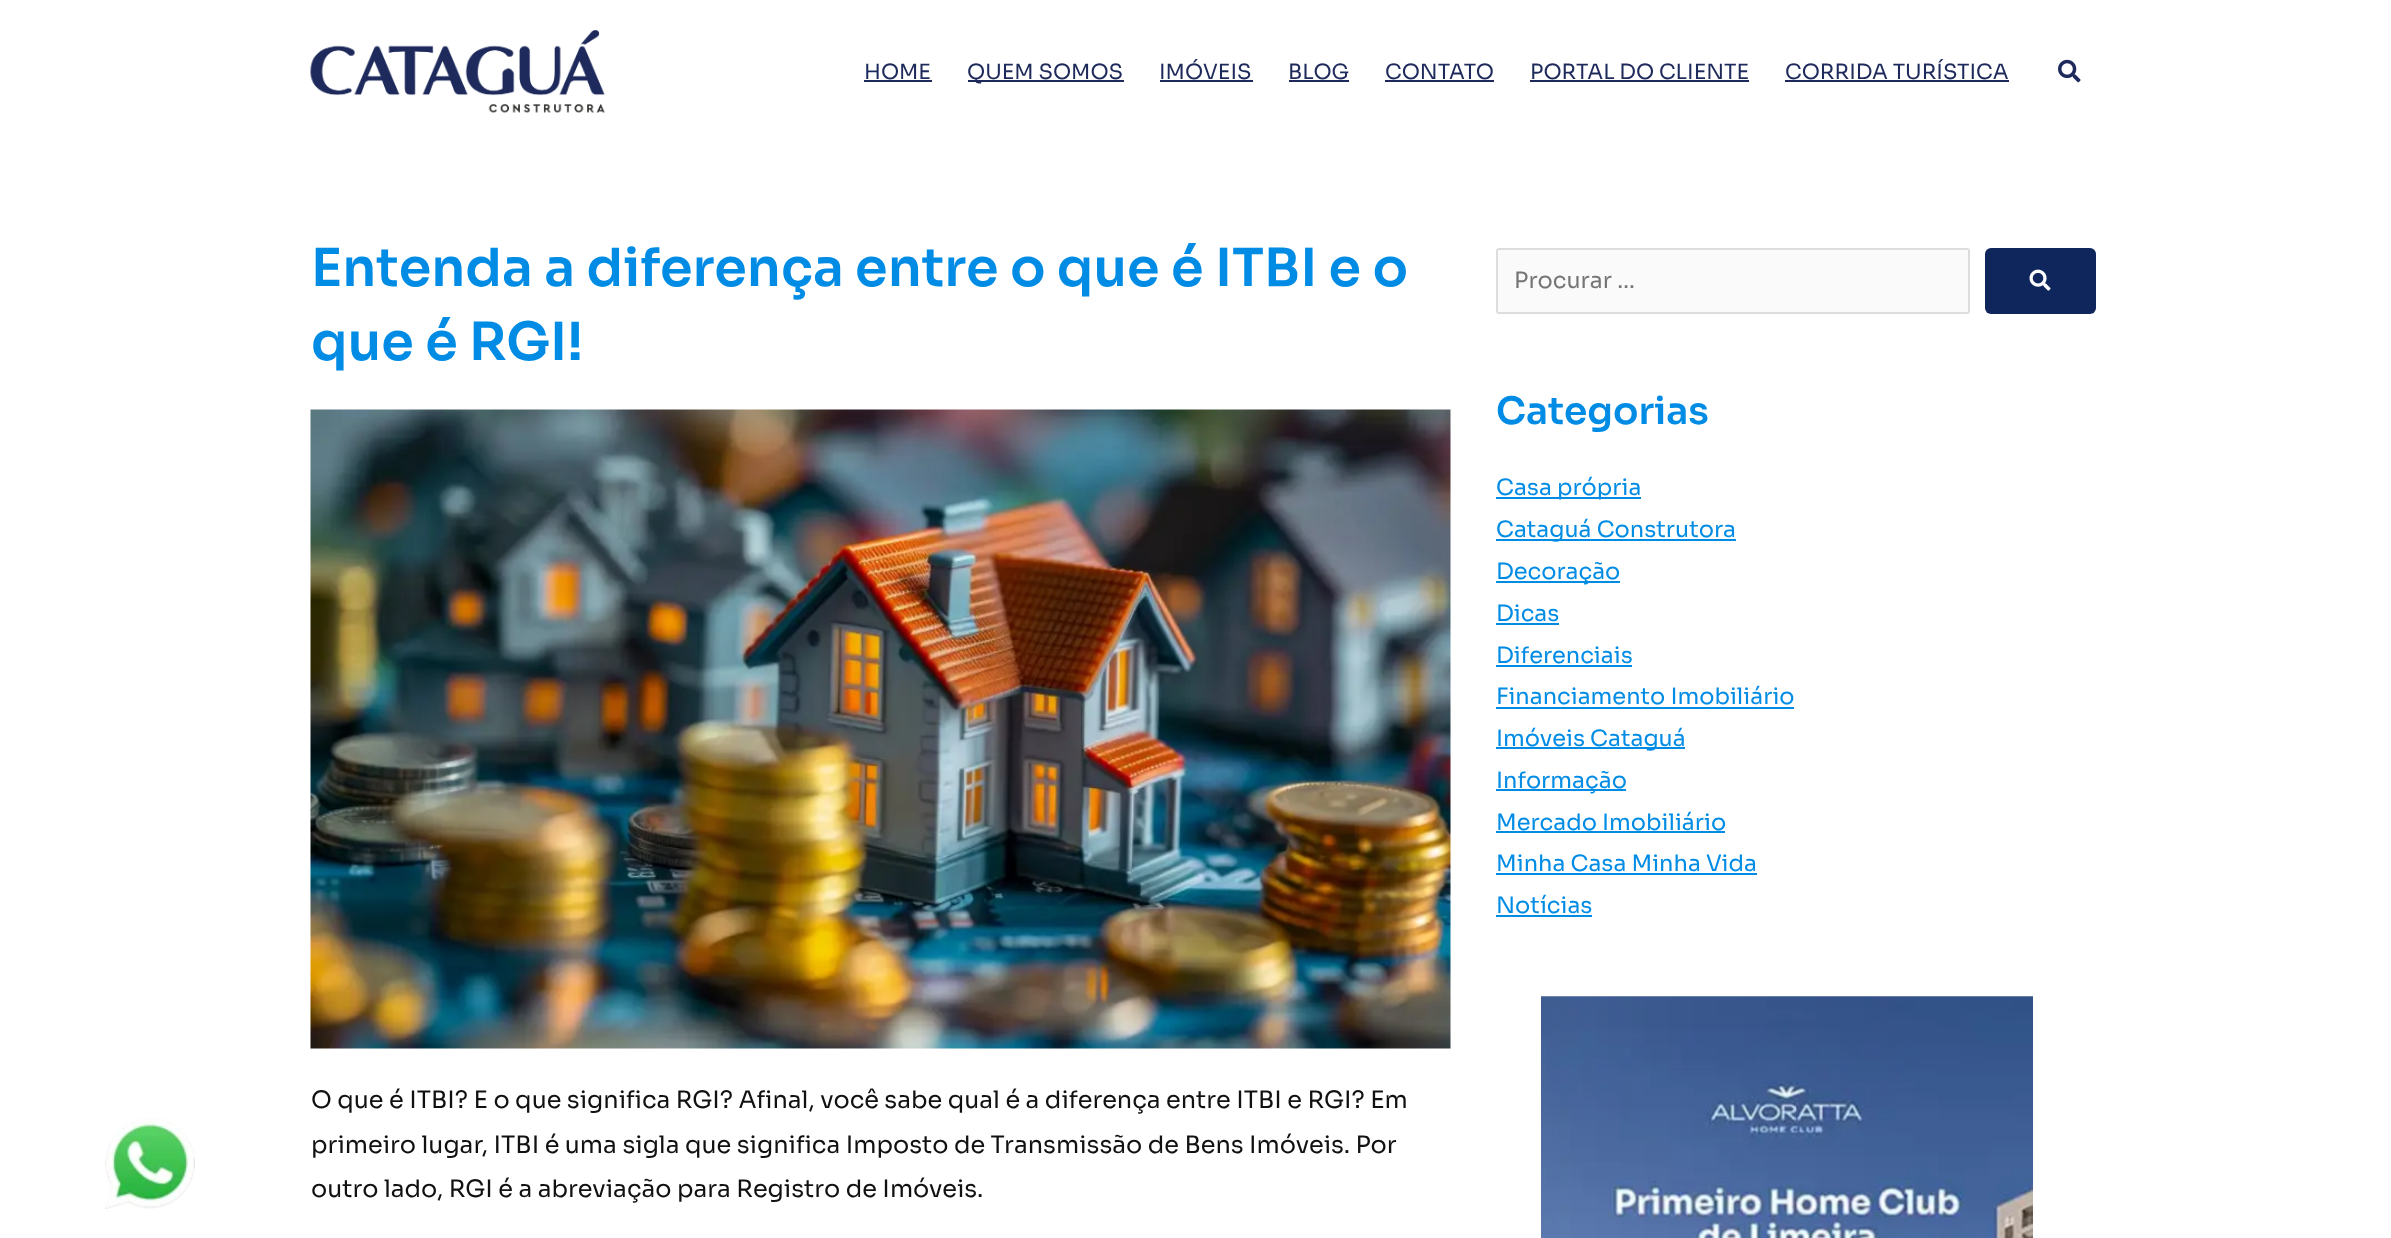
async function draw(canvas) {
	canvas.width = 2391;
	canvas.height = 1238;
	const c = canvas.getContext('2d');
	c.miterLimit = 4;
	c.fontKerning = 'normal';
	async function loadImage(src) {
		const img = new Image();
		img.src = src;
		await img.decode();
		return img;
	}

	c.fillStyle = '#fff';
	c.fillRect(0, 0, 2391, 1238);
	c.drawImage(await loadImage('img1.png'), 105, 1118, 90, 91);
	c.drawImage(await loadImage('img2.png'), 310, 30, 295, 83);
	c.font = '21px Sora';
	c.fillStyle = '#1e2a5b';
	c.fillText('HOME', 864, 79);
	c.fillRect(864, 80, 68, 2);
	c.fillRect(968, 80, 156, 2);
	c.fillText('QUEM SOMOS', 967, 79);
	c.fillText('IMÓVEIS', 1159, 79);
	c.fillRect(1160, 80, 93, 2);
	c.fillText('BLOG', 1288, 79);
	c.fillRect(1289, 80, 60, 2);
	c.fillText('CONTATO', 1385, 79);
	c.fillRect(1385, 80, 109, 2);
	c.fillText('PORTAL DO CLIENTE', 1530, 79);
	c.fillRect(1530, 80, 219, 2);
	c.fillText('CORRIDA TURÍSTICA', 1785, 79);
	c.fillRect(1785, 80, 224, 2);
	c.drawImage(await loadImage('img3.png'), 2058, 59, 23, 24);
	c.font = '600 52.5px Sora';
	c.fillStyle = '#008ce5';
	c.fillText('Entenda a diferença entre o que é ITBI e o', 311, 286);
	c.fillText('que é RGI!', 311, 360);
	c.drawImage(await loadImage('img4.png'), 310, 409, 1141, 640);
	c.font = '24px Sora';
	c.fillStyle = '#111';
	for (const [text, x, y] of [
		['O que é ITBI? E o que significa RGI? Afinal, você sabe qual é a diferença entre ITBI e RGI? Em', 311, 1108],
		['primeiro lugar, ITBI é uma sigla que significa Imposto de Transmissão de Bens Imóveis. Por', 311, 1153],
		['outro lado, RGI é a abreviação para Registro de Imóveis.', 311, 1197],
	]) {
		c.fillText(text, x, y);
	}
	c.fillStyle = '#fafafa';
	c.beginPath();
	c.roundRect(1497, 249, 472, 64, 2);
	c.fill();
	c.strokeStyle = '#ddd';
	c.lineWidth = 2;
	c.stroke();
	c.font = '22.5px Sora';
	c.fillStyle = '#757575';
	c.fillText('Procurar …', 1514, 288);
	c.fillStyle = '#0f265c';
	c.beginPath();
	c.roundRect(1985, 248, 111, 66, 6);
	c.fill();
	c.drawImage(await loadImage('img5.png'), 2029, 269, 22, 22);
	c.font = '600 37.5px Sora';
	c.fillStyle = '#008ce5';
	c.fillText('Categorias', 1496, 424);
	c.fillRect(1496, 497, 145, 2);
	c.font = '22.5px Sora';
	c.fillText('Casa própria', 1496, 495);
	c.fillRect(1496, 539, 240, 2);
	c.fillText('Cataguá Construtora', 1496, 537);
	c.fillRect(1496, 581, 124, 2);
	c.fillText('Decoração', 1496, 579);
	c.fillText('Dicas', 1496, 621);
	c.fillRect(1496, 623, 63, 2);
	c.fillText('Diferenciais', 1496, 663);
	c.fillRect(1496, 665, 136, 2);
	c.fillText('Financiamento Imobiliário', 1496, 704);
	c.fillRect(1496, 707, 298, 2);
	c.fillRect(1496, 747, 189, 2);
	c.fillText('Imóveis Cataguá', 1496, 746);
	c.fillRect(1496, 789, 130, 2);
	c.fillText('Informação', 1496, 788);
	c.fillText('Mercado Imobiliário', 1496, 830);
	c.fillRect(1496, 831, 229, 2);
	c.fillText('Minha Casa Minha Vida', 1496, 871);
	c.fillRect(1496, 873, 261, 2);
	c.fillText('Notícias', 1496, 913);
	c.fillRect(1496, 915, 96, 2);
	c.drawImage(await loadImage('img6.png'), 1541, 996, 492, 242);
}

draw(document.querySelector('canvas'));
